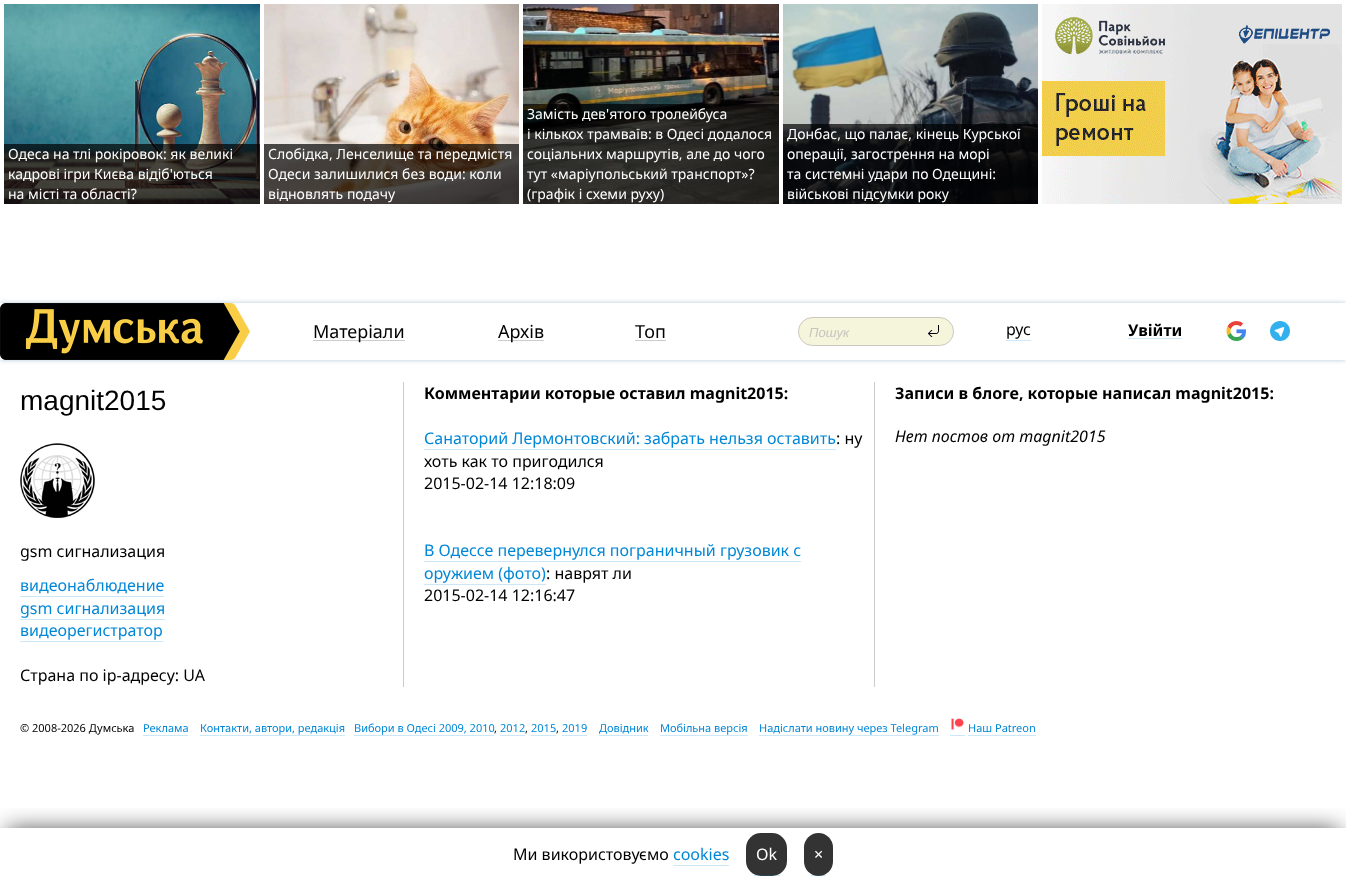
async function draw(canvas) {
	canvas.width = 1346;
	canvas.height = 878;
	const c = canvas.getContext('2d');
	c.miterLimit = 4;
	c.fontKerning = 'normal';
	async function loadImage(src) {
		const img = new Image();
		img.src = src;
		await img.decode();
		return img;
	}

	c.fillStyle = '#fff';
	c.fillRect(0, 0, 1346, 878);
	c.drawImage(await loadImage('img1.png'), 4, 4, 256, 200);
	for (const [x, y, w, h, color] of [
		[4, 144, 4, 60, '#000000b3'],
		[256, 144, 4, 60, '#000000b3'],
		[8, 144, 248, 60, '#000000b3'],
	]) {
		c.fillStyle = color;
		c.fillRect(x, y, w, h);
	}
	c.font = '14px Noto Sans';
	c.fillStyle = '#fff';
	for (const [text, x, y] of [
		['Одеса на тлі рокіровок: як великі', 8, 159],
		['кадрові ігри Києва відіб\'ються', 8, 179],
		['на місті та області?', 8, 199],
	]) {
		c.fillText(text, x, y);
	}
	c.drawImage(await loadImage('img2.png'), 264, 4, 255, 200);
	for (const [x, y, w, h, color] of [
		[264, 144, 4, 60, '#000000b3'],
		[515, 144, 4, 60, '#000000b3'],
		[268, 144, 247, 60, '#000000b3'],
	]) {
		c.fillStyle = color;
		c.fillRect(x, y, w, h);
	}
	c.fillStyle = '#fff';
	for (const [text, x, y] of [
		['Слобідка, Ленселище та передмістя', 268, 159],
		['Одеси залишилися без води: коли', 268, 179],
		['відновлять подачу', 268, 199],
	]) {
		c.fillText(text, x, y);
	}
	c.drawImage(await loadImage('img3.png'), 523, 4, 256, 200);
	for (const [x, y, w, h, color] of [
		[523, 104, 4, 100, '#000000b3'],
		[775, 104, 4, 100, '#000000b3'],
		[527, 104, 248, 100, '#000000b3'],
	]) {
		c.fillStyle = color;
		c.fillRect(x, y, w, h);
	}
	c.fillStyle = '#fff';
	for (const [text, x, y] of [
		['Замість дев\'ятого тролейбуса', 527, 119],
		['і кількох трамваїв: в Одесі додалося', 527, 139],
		['соціальних маршрутів, але до чого', 527, 159],
		['тут «маріупольський транспорт»?', 527, 179],
		['(графік і схеми руху)', 527, 199],
	]) {
		c.fillText(text, x, y);
	}
	c.drawImage(await loadImage('img4.png'), 783, 4, 255, 200);
	for (const [x, y, w, h, color] of [
		[783, 124, 4, 80, '#000000b3'],
		[1034, 124, 4, 80, '#000000b3'],
		[787, 124, 247, 80, '#000000b3'],
	]) {
		c.fillStyle = color;
		c.fillRect(x, y, w, h);
	}
	c.fillStyle = '#fff';
	for (const [text, x, y] of [
		['Донбас, що палає, кінець Курської', 787, 139],
		['операції, загострення на морі', 787, 159],
		['та системні удари по Одещині:', 787, 179],
		['військові підсумки року', 787, 199],
	]) {
		c.fillText(text, x, y);
	}
	c.drawImage(await loadImage('img5.png'), 1042, 4, 300, 200);
	c.save();
	c.beginPath();
	c.moveTo(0, 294);
	c.lineTo(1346, 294);
	c.lineTo(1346, 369);
	c.lineTo(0, 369);
	c.closePath();
	c.moveTo(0, 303);
	c.lineTo(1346, 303);
	c.lineTo(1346, 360);
	c.lineTo(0, 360);
	c.closePath();
	c.clip('evenodd');
	c.fillStyle = '#004f7a4d';
	c.filter = 'blur(2.5px)';
	c.beginPath();
	c.rect(0, 303, 1346, 57);
	c.fill();
	c.filter = 'none';
	c.restore();
	c.drawImage(await loadImage('img6.png'), 0, 303, 250, 57);
	c.fillStyle = '#ccc';
	c.fillRect(313, 340, 92, 1);
	c.font = '18px Noto Sans';
	c.fillStyle = '#000';
	c.fillText('Матеріали', 313, 338);
	c.fillStyle = '#ccc';
	c.fillRect(498, 340, 46, 1);
	c.fillStyle = '#000';
	c.fillText('Архів', 498, 338);
	c.fillStyle = '#ccc';
	c.fillRect(635, 340, 31, 1);
	c.fillStyle = '#000';
	c.fillText('Топ', 635, 338);
	c.fillStyle = '#f5f5dc';
	c.beginPath();
	c.roundRect(798.5, 317.5, 155, 28, 14);
	c.fill();
	c.strokeStyle = '#ccc7bd';
	c.stroke();
	c.font = 'italic 13px Liberation Sans';
	c.fillStyle = '#c6c4be';
	c.fillText('Пошук', 809, 337);
	c.drawImage(await loadImage('img7.png'), 927, 325, 12, 12);
	c.font = '16px Noto Sans';
	c.fillStyle = '#000';
	c.fillText('рус', 1006, 335);
	c.fillStyle = '#cce7f7';
	c.fillRect(1006, 340, 25, 1);
	c.fillRect(1128, 338, 54, 1);
	c.font = 'bold 16px Noto Sans';
	c.fillStyle = '#000';
	c.fillText('Увійти', 1128, 336);
	c.drawImage(await loadImage('img8.png'), 1226, 321, 20, 20);
	c.drawImage(await loadImage('img9.png'), 1270, 321, 20, 20);
	c.fillStyle = '#ccc';
	c.fillRect(403, 382, 1, 305);
	c.font = '28px Liberation Sans';
	c.fillStyle = '#000';
	c.fillText('magnit2015', 20, 410);
	c.drawImage(await loadImage('img10.png'), 20, 443, 75, 75);
	c.font = '16px Noto Sans';
	c.fillText('gsm сигнализация', 20, 557);
	c.fillStyle = '#0087d6';
	c.fillText('видеонаблюдение', 20, 591);
	c.fillStyle = '#cce7f7';
	c.fillRect(20, 596, 144, 1);
	c.fillStyle = '#0087d6';
	c.fillText('gsm сигнализация', 20, 614);
	c.fillStyle = '#cce7f7';
	c.fillRect(20, 619, 145, 1);
	c.fillStyle = '#0087d6';
	c.fillText('видеорегистратор', 20, 636);
	c.fillStyle = '#cce7f7';
	c.fillRect(20, 641, 143, 1);
	c.fillStyle = '#000';
	c.fillText('Страна по ip-адресу: UA', 20, 681);
	c.fillStyle = '#ccc';
	c.fillRect(874, 382, 1, 305);
	c.font = 'bold 16px Noto Sans';
	c.fillStyle = '#000';
	c.fillText('Комментарии которые оставил magnit2015:', 424, 399);
	c.font = '16px Noto Sans';
	c.fillStyle = '#0087d6';
	c.fillText('Санаторий Лермонтовский: забрать нельзя оставить', 424, 444);
	c.fillStyle = '#cce7f7';
	c.fillRect(424, 449, 412, 1);
	c.fillStyle = '#000';
	for (const [text, x, y] of [
		[': ну', 836, 444],
		['хоть как то пригодился', 424, 467],
		['2015-02-14 12:18:09', 424, 489],
	]) {
		c.fillText(text, x, y);
	}
	c.fillStyle = '#0087d6';
	c.fillText('В Одессе перевернулся пограничный грузовик с', 424, 556);
	c.fillStyle = '#cce7f7';
	c.fillRect(424, 561, 377, 1);
	c.fillStyle = '#0087d6';
	c.fillText('оружием (фото)', 424, 579);
	c.fillStyle = '#cce7f7';
	c.fillRect(424, 584, 122, 1);
	c.fillStyle = '#000';
	c.fillText(': наврят ли', 546, 579);
	c.fillText('2015-02-14 12:16:47', 424, 601);
	c.font = 'bold 16px Noto Sans';
	c.fillText('Записи в блоге, которые написал magnit2015:', 895, 399);
	c.font = 'italic 16px Noto Sans';
	c.fillText('Нет постов от magnit2015', 895, 442);
	c.font = '11px Noto Sans';
	c.fillText('© 2008-2026 Думська', 20, 732);
	c.fillStyle = '#0087d6';
	c.fillText('Реклама', 143, 732);
	c.fillStyle = '#cce7f7';
	c.fillRect(143, 735, 45, 1);
	c.fillStyle = '#0087d6';
	c.fillText('Контакти, автори, редакція', 200, 732);
	c.fillStyle = '#cce7f7';
	c.fillRect(200, 735, 145, 1);
	c.fillStyle = '#0087d6';
	c.fillText('Вибори в Одесі 2009, 2010', 354, 732);
	c.fillStyle = '#cce7f7';
	c.fillRect(354, 735, 140, 1);
	c.fillStyle = '#000';
	c.fillText(',', 494, 732);
	c.fillStyle = '#0087d6';
	c.fillText('2012', 500, 732);
	c.fillStyle = '#cce7f7';
	c.fillRect(500, 735, 25, 1);
	c.fillStyle = '#000';
	c.fillText(',', 525, 732);
	c.fillStyle = '#0087d6';
	c.fillText('2015', 531, 732);
	c.fillStyle = '#cce7f7';
	c.fillRect(531, 735, 25, 1);
	c.fillStyle = '#000';
	c.fillText(',', 556, 732);
	c.fillStyle = '#0087d6';
	c.fillText('2019', 562, 732);
	c.fillStyle = '#cce7f7';
	c.fillRect(562, 735, 25, 1);
	c.fillStyle = '#0087d6';
	c.fillText('Довідник', 599, 732);
	c.fillStyle = '#cce7f7';
	c.fillRect(599, 735, 49, 1);
	c.fillStyle = '#0087d6';
	c.fillText('Мобільна версія', 660, 732);
	c.fillStyle = '#cce7f7';
	c.fillRect(660, 735, 88, 1);
	c.fillStyle = '#0087d6';
	c.fillText('Надіслати новину через Telegram', 759, 732);
	c.fillStyle = '#cce7f7';
	c.fillRect(759, 735, 180, 1);
	c.drawImage(await loadImage('img11.png'), 951, 718, 13, 13);
	c.fillStyle = '#0087d6';
	c.fillText('Наш Patreon', 968, 732);
	c.fillStyle = '#cce7f7';
	c.fillRect(968, 735, 68, 1);
	c.fillRect(950, 735, 15, 1);
	c.save();
	c.beginPath();
	c.rect(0, 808, 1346, 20);
	c.clip();
	c.fillStyle = '#000000bf';
	c.filter = 'blur(11.5px)';
	c.beginPath();
	c.rect(7, 830, 1332, 36);
	c.fill();
	c.filter = 'none';
	c.restore();
	c.font = '16px Noto Sans';
	c.fillStyle = '#000';
	c.fillText('Ми використовуємо', 513, 860);
	c.fillStyle = '#0087d6';
	c.fillText('cookies', 673, 860);
	c.fillStyle = '#cce7f7';
	c.fillRect(673, 865, 56, 1);
	c.fillStyle = '#333';
	c.beginPath();
	c.roundRect(746, 833, 41, 43, 15);
	c.fill();
	c.fillStyle = '#fff';
	c.fillText('Ok', 756, 860);
	c.fillStyle = '#0087d633';
	c.fillRect(754, 875, 26, 1);
	c.fillStyle = '#333';
	c.beginPath();
	c.roundRect(804, 833, 29, 43, 14.5);
	c.fill();
	c.fillStyle = '#fff';
	c.fillText('×', 814, 860);
	c.fillStyle = '#0087d633';
	c.fillRect(811, 875, 15, 1);
}

draw(document.querySelector('canvas'));
